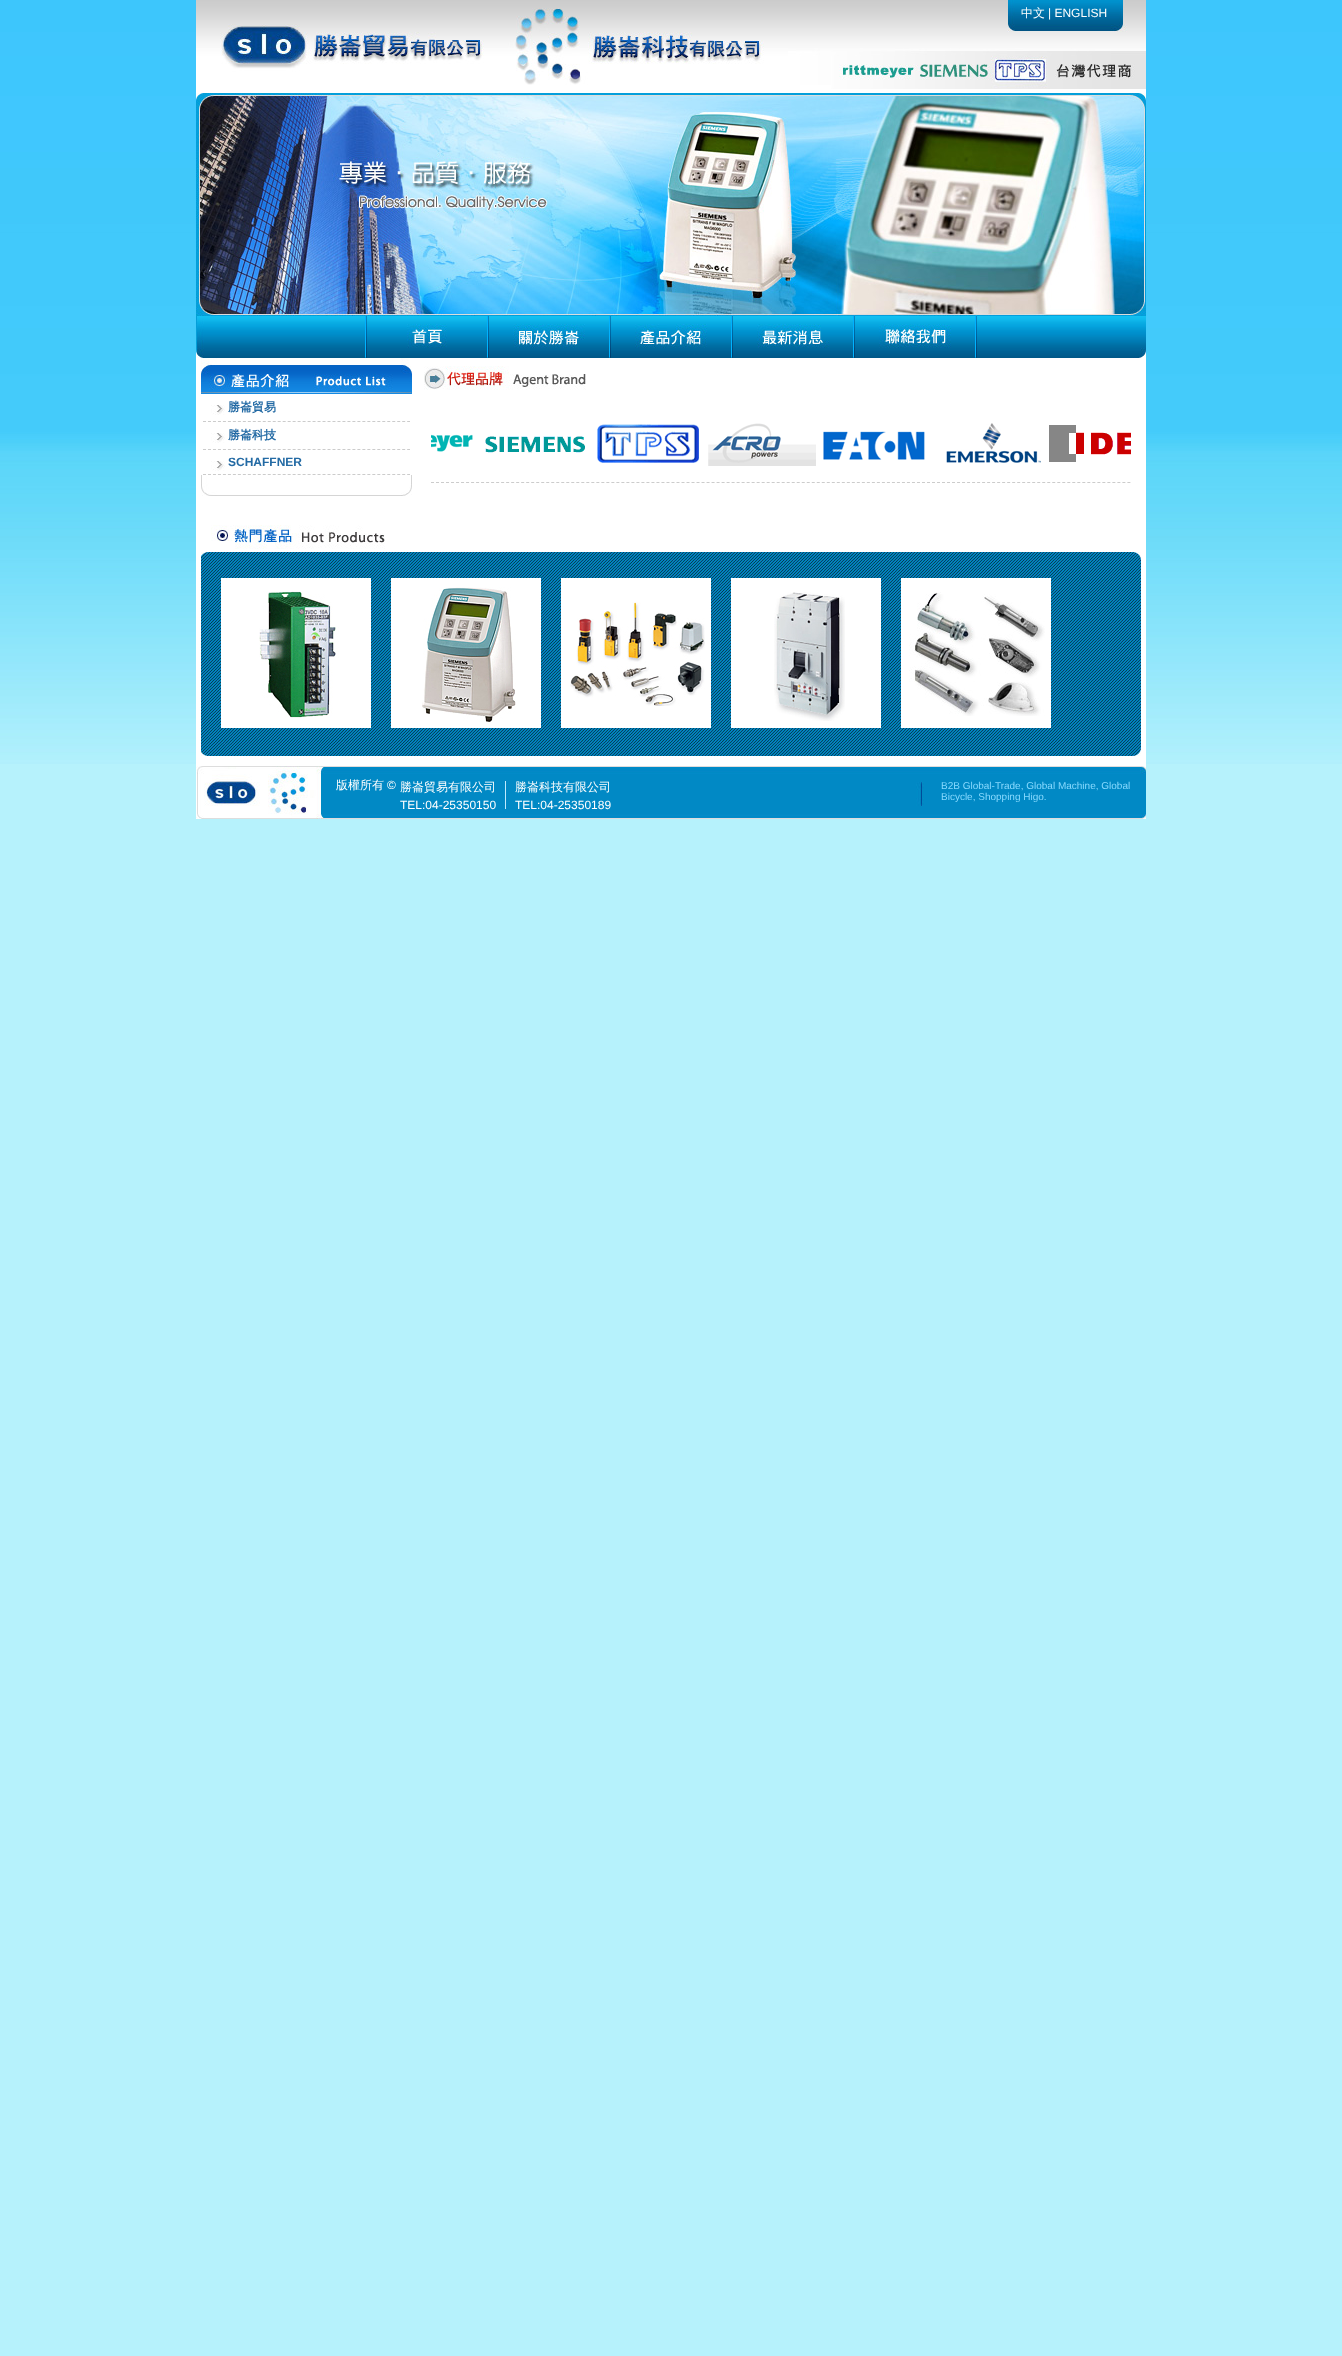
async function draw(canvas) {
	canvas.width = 1342;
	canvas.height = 2356;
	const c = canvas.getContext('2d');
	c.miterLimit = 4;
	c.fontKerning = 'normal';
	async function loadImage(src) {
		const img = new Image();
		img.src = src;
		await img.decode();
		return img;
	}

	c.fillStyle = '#b6f2fc';
	c.fillRect(0, 0, 1342, 2356);
	c.drawImage(await loadImage('img1.png'), 0, 0, 1342, 764);
	c.fillStyle = '#fff';
	c.fillRect(196, 85, 950, 681);
	c.drawImage(await loadImage('img2.png'), 196, 0, 635, 85);
	c.drawImage(await loadImage('img3.png'), 831, 0, 315, 89);
	c.font = '500 12px WenQuanYi Zen Hei';
	c.fillText('中文', 1021, 17);
	c.font = '12px Liberation Sans';
	c.fillText('| ENGLISH', 1048, 17);
	c.drawImage(await loadImage('img4.png'), 196, 93, 950, 223);
	c.drawImage(await loadImage('img5.png'), 196, 316, 950, 42);
	c.drawImage(await loadImage('img6.png'), 365, 316, 2, 42);
	c.drawImage(await loadImage('img7.png'), 407, 324, 40, 24);
	c.drawImage(await loadImage('img6.png'), 487, 316, 2, 42);
	c.drawImage(await loadImage('img8.png'), 513, 324, 72, 24);
	c.drawImage(await loadImage('img6.png'), 609, 316, 2, 42);
	c.drawImage(await loadImage('img9.png'), 635, 324, 72, 24);
	c.drawImage(await loadImage('img6.png'), 731, 316, 2, 42);
	c.drawImage(await loadImage('img10.png'), 757, 324, 72, 24);
	c.drawImage(await loadImage('img6.png'), 853, 316, 2, 42);
	c.drawImage(await loadImage('img11.png'), 879, 324, 72, 24);
	c.drawImage(await loadImage('img6.png'), 975, 316, 2, 42);
	c.drawImage(await loadImage('img12.png'), 201, 358, 211, 36);
	c.drawImage(await loadImage('img13.png'), 211, 405, 14, 10);
	c.beginPath();
	c.moveTo(203, 421.5);
	c.lineTo(410, 421.5);
	c.strokeStyle = '#ccc';
	c.setLineDash([3, 1.98]);
	c.stroke();
	c.font = 'bold 12px WenQuanYi Zen Hei';
	c.fillStyle = '#236aa4';
	c.fillText('勝崙貿易', 228, 411);
	c.drawImage(await loadImage('img13.png'), 211, 433, 14, 10);
	c.beginPath();
	c.moveTo(203, 449.5);
	c.lineTo(410, 449.5);
	c.stroke();
	c.fillText('勝崙科技', 228, 439);
	c.drawImage(await loadImage('img13.png'), 211, 461, 14, 10);
	c.beginPath();
	c.moveTo(203, 474.5);
	c.lineTo(410, 474.5);
	c.stroke();
	c.font = 'bold 12px Liberation Sans';
	c.fillText('SCHAFFNER', 228, 466);
	c.drawImage(await loadImage('img14.png'), 201, 475, 211, 21);
	c.drawImage(await loadImage('img15.png'), 424, 366, 162, 24);
	c.beginPath();
	c.moveTo(431, 482.5);
	c.lineTo(1131, 482.5);
	c.setLineDash([3, 2.01]);
	c.stroke();
	c.drawImage(await loadImage('img16.png'), 431, 434, 42, 18);
	c.drawImage(await loadImage('img17.png'), 485, 436, 100, 17);
	c.drawImage(await loadImage('img18.png'), 597, 424, 102, 39);
	c.drawImage(await loadImage('img19.png'), 708, 423, 108, 43);
	c.drawImage(await loadImage('img20.png'), 823, 431, 102, 29);
	c.drawImage(await loadImage('img21.png'), 946, 423, 95, 40);
	c.drawImage(await loadImage('img22.png'), 1049, 425, 82, 37);
	c.drawImage(await loadImage('img23.png'), 211, 525, 174, 24);
	c.drawImage(await loadImage('img24.png'), 201, 552, 940, 204);
	c.fillStyle = '#fff';
	c.fillRect(221, 578, 150, 150);
	c.drawImage(await loadImage('img25.png'), 259, 591, 80, 127);
	c.fillRect(391, 578, 150, 150);
	c.drawImage(await loadImage('img26.png'), 422, 587, 94, 135);
	c.fillRect(561, 578, 150, 150);
	c.drawImage(await loadImage('img27.png'), 570, 602, 135, 104);
	c.fillRect(731, 578, 150, 150);
	c.drawImage(await loadImage('img28.png'), 774, 592, 71, 129);
	c.fillRect(901, 578, 150, 150);
	c.drawImage(await loadImage('img29.png'), 909, 592, 136, 124);
	c.drawImage(await loadImage('img30.png'), 196, 766, 950, 53);
	c.font = '500 12px WenQuanYi Zen Hei';
	c.fillText('版權所有', 336, 789);
	c.font = '12px Liberation Sans';
	c.fillText('©', 387, 789);
	c.font = '500 12px WenQuanYi Zen Hei';
	c.fillText('勝崙貿易有限公司', 400, 791);
	c.fillStyle = '#beeafd';
	c.fillRect(505, 781, 1, 28);
	c.font = '12px Liberation Sans';
	c.fillStyle = '#fff';
	c.fillText('TEL:04-25350150', 400, 809);
	c.font = '500 12px WenQuanYi Zen Hei';
	c.fillText('勝崙科技有限公司', 515, 791);
	c.font = '12px Liberation Sans';
	c.fillText('TEL:04-25350189', 515, 809);
	c.font = '10px Liberation Sans';
	c.fillStyle = '#88daff';
	c.fillText('B2B Global-Trade, Global Machine, Global', 941, 789);
	c.fillText('Bicycle, Shopping Higo.', 941, 800);
}

draw(document.querySelector('canvas'));
